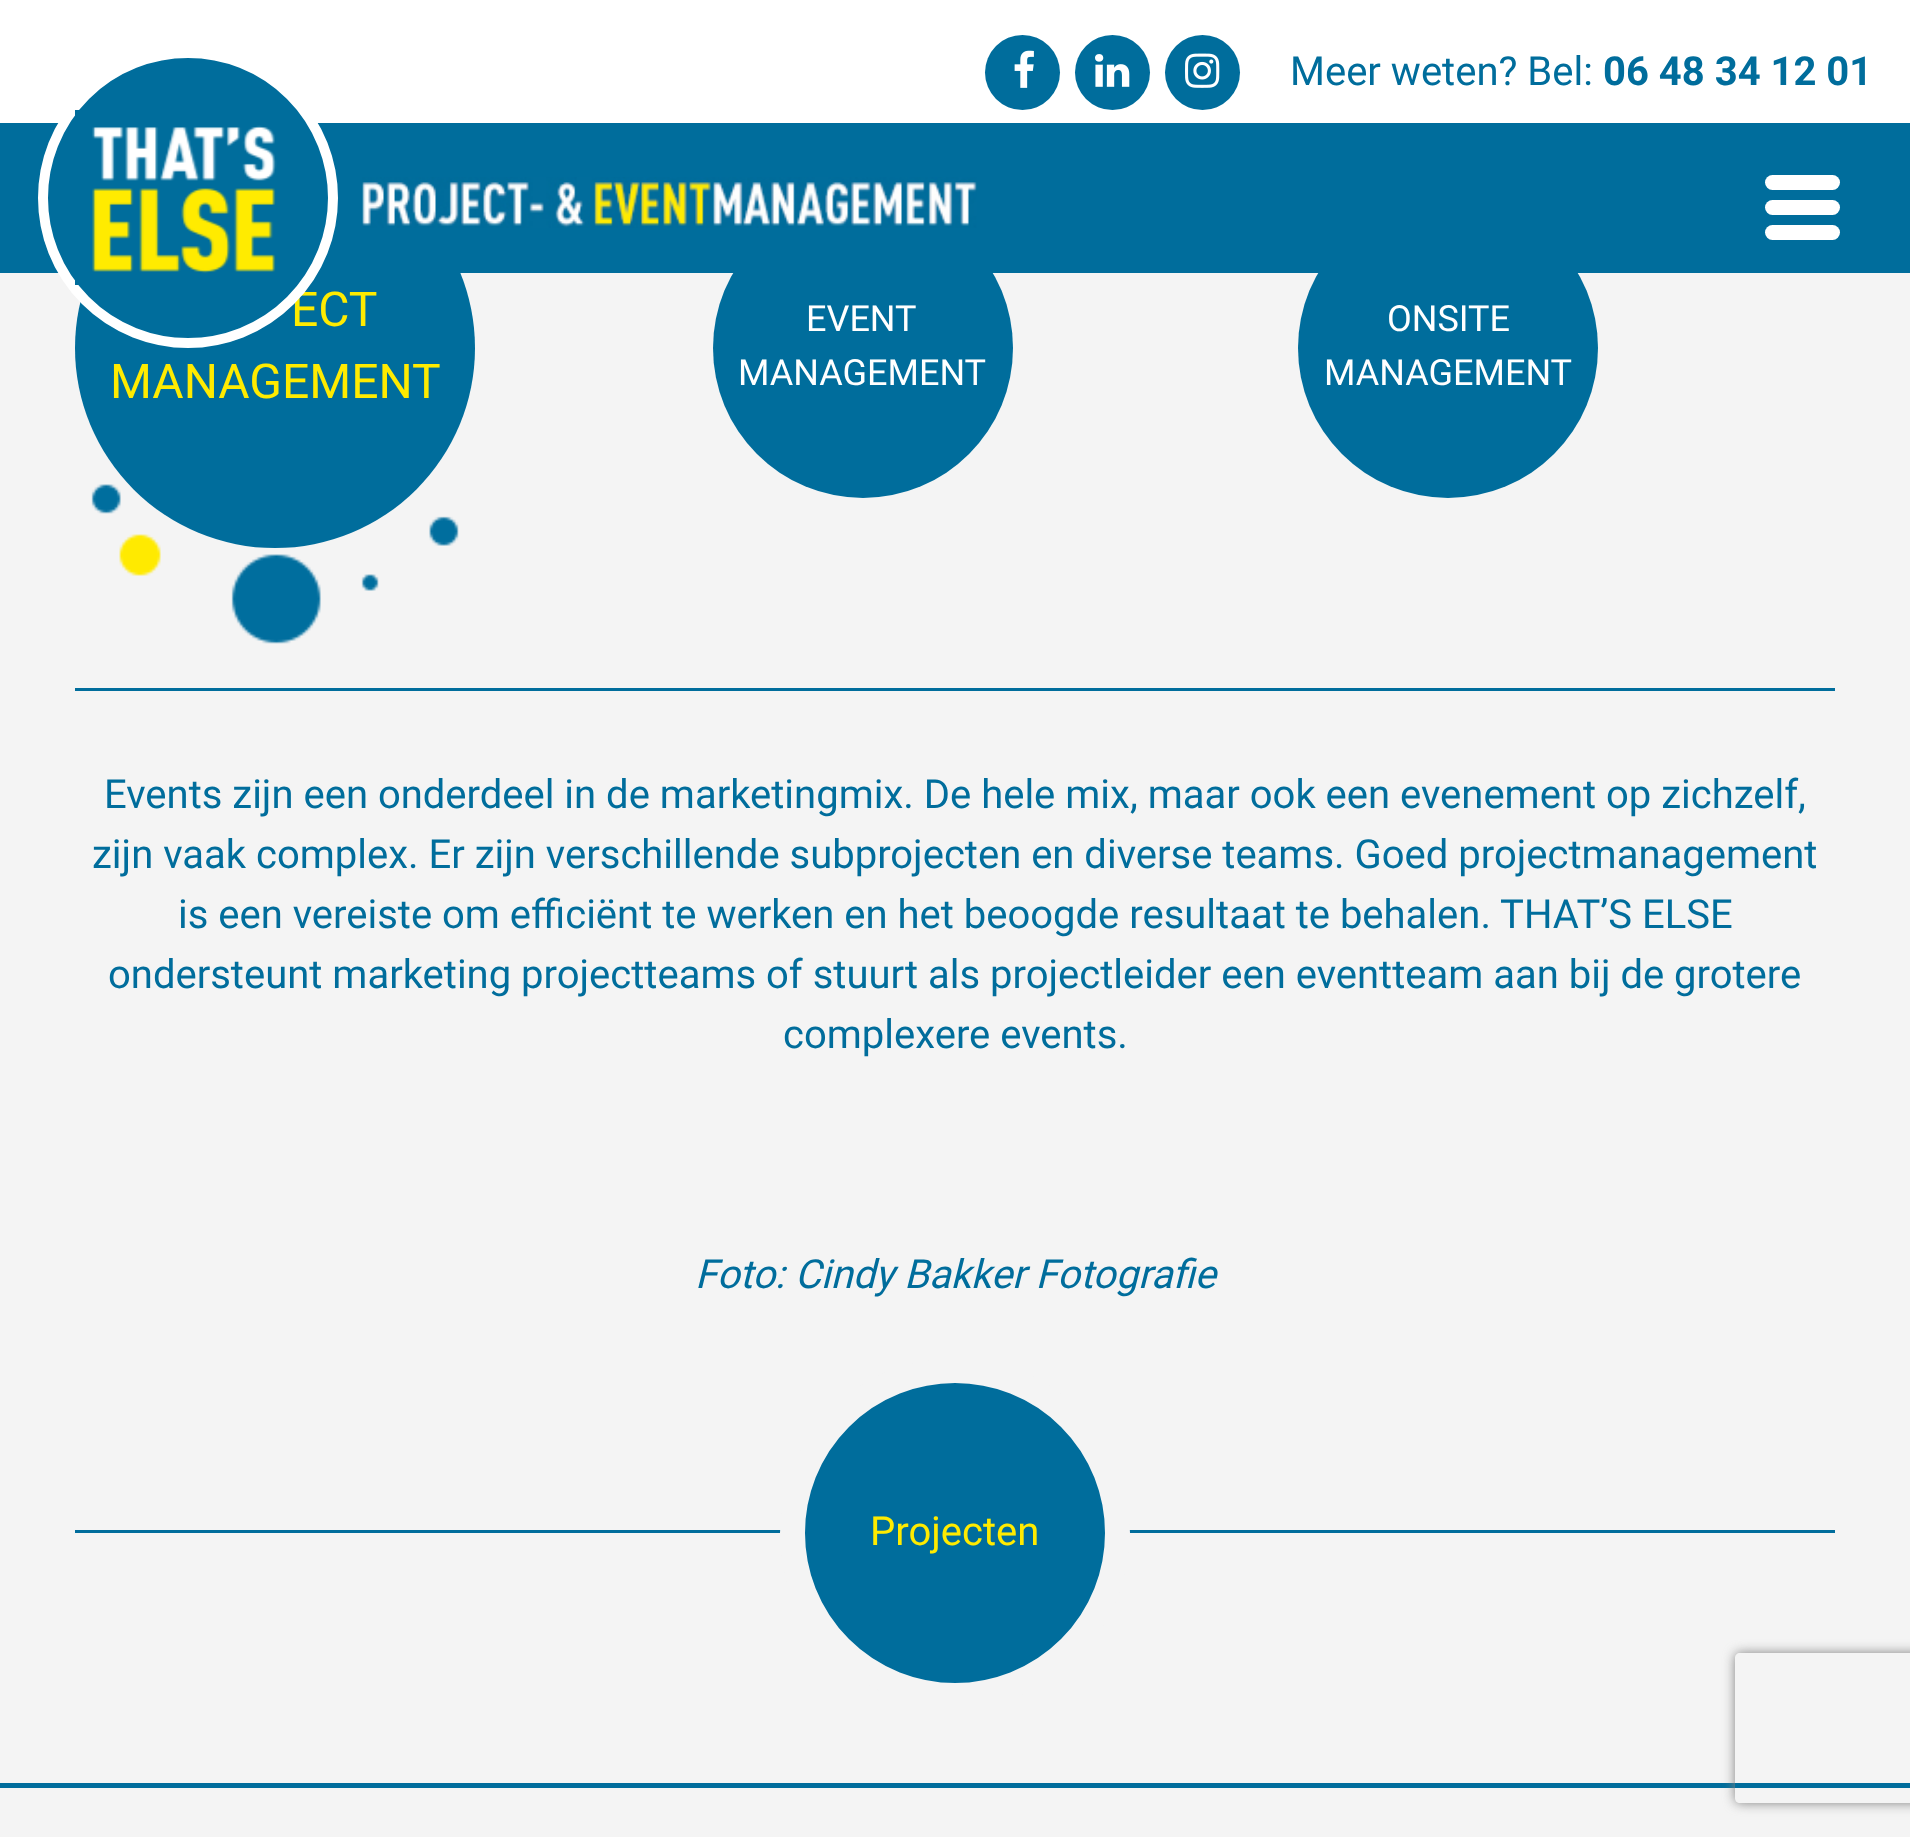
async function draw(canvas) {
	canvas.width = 1910;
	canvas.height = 1837;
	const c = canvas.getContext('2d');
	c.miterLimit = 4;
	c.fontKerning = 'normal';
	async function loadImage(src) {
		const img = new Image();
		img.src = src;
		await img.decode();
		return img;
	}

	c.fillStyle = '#f4f4f4';
	c.fillRect(0, 0, 1910, 1837);
	c.drawImage(await loadImage('img6.png'), 91, 484, 368, 160);
	c.fillStyle = '#006d9c';
	c.beginPath();
	c.arc(275, 348, 200, 0, 2 * Math.PI);
	c.fill();
	c.beginPath();
	c.arc(863, 348, 150, 0, 2 * Math.PI);
	c.fill();
	c.beginPath();
	c.arc(1448, 348, 150, 0, 2 * Math.PI);
	c.fill();
	c.fillRect(0, 123, 1910, 150);
	c.fillStyle = '#fff';
	c.fillRect(0, 0, 1910, 123);
	c.font = '48px Roboto';
	c.fillStyle = '#ffeb00';
	c.fillText('ECT', 291, 326);
	c.fillStyle = '#006d9c';
	c.beginPath();
	c.arc(188, 198, 145, 0, 2 * Math.PI);
	c.fill();
	c.strokeStyle = '#fff';
	c.lineWidth = 10;
	c.stroke();
	c.drawImage(await loadImage('img1.png'), 75, 110, 202, 175);
	c.drawImage(await loadImage('img2.png'), 362, 177, 615, 51);
	c.fillStyle = '#fff';
	c.beginPath();
	c.roundRect(1765, 175, 75, 15, 7.5);
	c.fill();
	c.beginPath();
	c.roundRect(1765, 200, 75, 15, 7.5);
	c.fill();
	c.beginPath();
	c.roundRect(1765, 225, 75, 15, 7.5);
	c.fill();
	c.fillStyle = '#006d9c';
	c.beginPath();
	c.arc(1022.5, 72.5, 37.5, 0, 2 * Math.PI);
	c.fill();
	c.drawImage(await loadImage('img3.png'), 1014, 50, 20, 38);
	c.beginPath();
	c.arc(1112.5, 72.5, 37.5, 0, 2 * Math.PI);
	c.fill();
	c.drawImage(await loadImage('img4.png'), 1095, 54, 35, 33);
	c.beginPath();
	c.arc(1202.5, 72.5, 37.5, 0, 2 * Math.PI);
	c.fill();
	c.drawImage(await loadImage('img5.png'), 1185, 53, 35, 35);
	c.font = '40px Roboto';
	c.fillText('Meer weten? Bel:', 1290, 85);
	c.font = 'bold 40px Roboto';
	c.fillText('06 48 34 12 01', 1603, 85);
	c.font = '48px Roboto';
	c.fillStyle = '#ffeb00';
	c.fillText('MANAGEMENT', 110, 398);
	c.font = '36px Roboto';
	c.fillStyle = '#fff';
	for (const [text, x, y] of [
		['EVENT', 806, 331],
		['MANAGEMENT', 738, 385],
		['ONSITE', 1387, 331],
		['MANAGEMENT', 1324, 385],
	]) {
		c.fillText(text, x, y);
	}
	c.fillStyle = '#006d9c';
	c.fillRect(75, 688, 1760, 3);
	c.font = '40px Roboto';
	for (const [text, x, y] of [
		['Events zijn een onderdeel in de marketingmix. De hele mix, maar ook een evenement op zichzelf,', 104, 808],
		['zijn vaak complex. Er zijn verschillende subprojecten en diverse teams. Goed projectmanagement', 92, 868],
		['is een vereiste om efficiënt te werken en het beoogde resultaat te behalen. THAT’S ELSE', 178, 928],
		['ondersteunt marketing projectteams of stuurt als projectleider een eventteam aan bij de grotere', 108, 988],
		['complexere events.', 783, 1048],
	]) {
		c.fillText(text, x, y);
	}
	c.font = 'italic 40px Roboto';
	c.fillText('Foto: Cindy Bakker Fotografie', 695, 1288);
	c.fillRect(75, 1530, 1760, 3);
	c.beginPath();
	c.arc(955, 1533, 162.5, 0, 2 * Math.PI);
	c.fill();
	c.strokeStyle = '#f4f4f4';
	c.lineWidth = 25;
	c.stroke();
	c.font = '40px Roboto';
	c.fillStyle = '#ffeb00';
	c.fillText('Projecten', 870, 1545);
	c.fillStyle = '#006d9c';
	c.fillRect(0, 1783, 1910, 5);
	c.save();
	c.beginPath();
	c.moveTo(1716, 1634);
	c.lineTo(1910, 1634);
	c.lineTo(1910, 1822);
	c.lineTo(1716, 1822);
	c.closePath();
	c.moveTo(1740, 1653);
	c.lineTo(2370, 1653);
	c.bezierCurveTo(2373, 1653, 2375, 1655, 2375, 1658);
	c.lineTo(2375, 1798);
	c.bezierCurveTo(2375, 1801, 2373, 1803, 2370, 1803);
	c.lineTo(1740, 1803);
	c.bezierCurveTo(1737, 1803, 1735, 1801, 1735, 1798);
	c.lineTo(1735, 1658);
	c.bezierCurveTo(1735, 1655, 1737, 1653, 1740, 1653);
	c.closePath();
	c.clip('evenodd');
	c.fillStyle = '#808080';
	c.filter = 'blur(6px)';
	c.beginPath();
	c.roundRect(1735, 1653, 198, 150, 5);
	c.fill();
	c.filter = 'none';
	c.restore();
}

draw(document.querySelector('canvas'));
